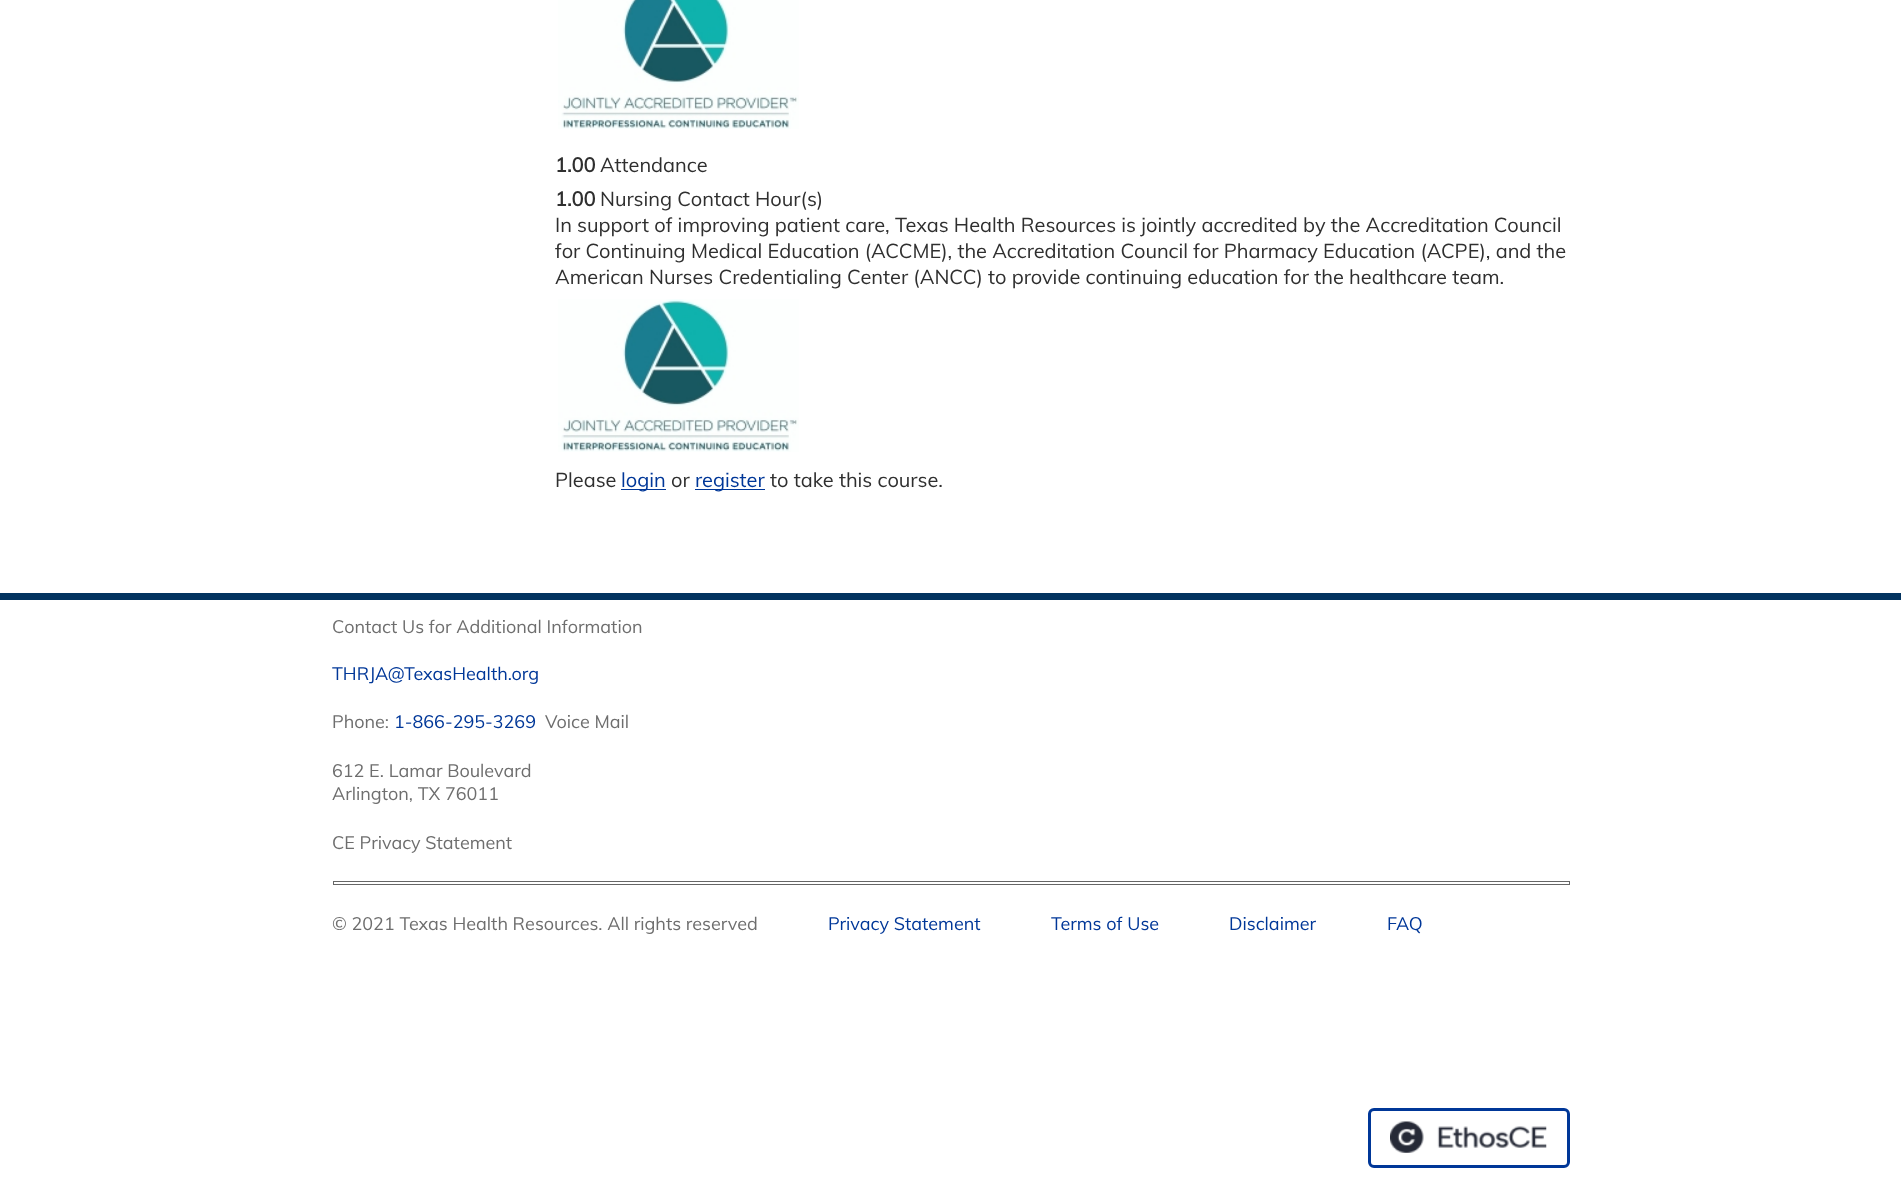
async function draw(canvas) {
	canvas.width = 1901;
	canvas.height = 1190;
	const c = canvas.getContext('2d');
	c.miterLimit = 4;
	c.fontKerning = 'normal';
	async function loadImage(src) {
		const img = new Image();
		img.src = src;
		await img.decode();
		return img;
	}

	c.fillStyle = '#fff';
	c.fillRect(0, 0, 1901, 1190);
	c.drawImage(await loadImage('img1.png'), 558, 0, 241, 129);
	c.font = 'bold 20px Muli';
	c.fillStyle = '#2f2f2f';
	c.fillText('1.00', 555, 172);
	c.font = '20px Muli';
	c.fillText('Attendance', 600, 172);
	c.font = 'bold 20px Muli';
	c.fillText('1.00', 555, 206);
	c.font = '20px Muli';
	for (const [text, x, y] of [
		['Nursing Contact Hour(s)', 600, 206],
		['In support of improving patient care, Texas Health Resources is jointly accredited by the Accreditation Council', 555, 232],
		['for Continuing Medical Education (ACCME), the Accreditation Council for Pharmacy Education (ACPE), and the', 555, 258],
		['American Nurses Credentialing Center (ANCC) to provide continuing education for the healthcare team.', 555, 284],
	]) {
		c.fillText(text, x, y);
	}
	c.drawImage(await loadImage('img2.png'), 558, 299, 241, 153);
	c.fillText('Please', 555, 487);
	c.fillStyle = '#003798';
	c.fillRect(621, 489, 45, 1);
	c.fillText('login', 621, 487);
	c.fillStyle = '#2f2f2f';
	c.fillText('or', 671, 487);
	c.fillStyle = '#003798';
	c.fillRect(695, 489, 70, 1);
	c.fillText('register', 695, 487);
	c.fillStyle = '#2f2f2f';
	c.fillText('to take this course.', 770, 487);
	c.fillStyle = '#03335f';
	c.fillRect(0, 593, 1901, 7);
	c.font = '18px Muli';
	c.fillStyle = '#6e6e6e';
	c.fillText('Contact Us for Additional Information', 332, 633);
	c.fillStyle = '#003798';
	c.fillText('THRJA@TexasHealth.org', 332, 680);
	c.fillStyle = '#6e6e6e';
	c.fillText('Phone:', 332, 728);
	c.fillStyle = '#003798';
	c.fillText('1-866-295-3269', 394, 728);
	c.fillStyle = '#6e6e6e';
	for (const [text, x, y] of [
		['Voice Mail', 545, 728],
		['612 E. Lamar Boulevard', 332, 777],
		['Arlington, TX 76011', 332, 800],
		['CE Privacy Statement', 332, 849],
	]) {
		c.fillText(text, x, y);
	}
	c.strokeStyle = '#666';
	c.strokeRect(333.5, 881.5, 1236, 3);
	c.fillText('© 2021 Texas Health Resources. All rights reserved', 332, 930);
	c.fillStyle = '#003798';
	for (const [text, x, y] of [
		['Privacy Statement', 828, 930],
		['Terms of Use', 1051, 930],
		['Disclaimer', 1229, 930],
		['FAQ', 1387, 930],
	]) {
		c.fillText(text, x, y);
	}
	c.drawImage(await loadImage('img3.png'), 1390, 1121, 157, 32);
	c.beginPath();
	c.roundRect(1369.5, 1109.5, 199, 57, 4.5);
	c.strokeStyle = '#003798';
	c.lineWidth = 3;
	c.stroke();
}

draw(document.querySelector('canvas'));
